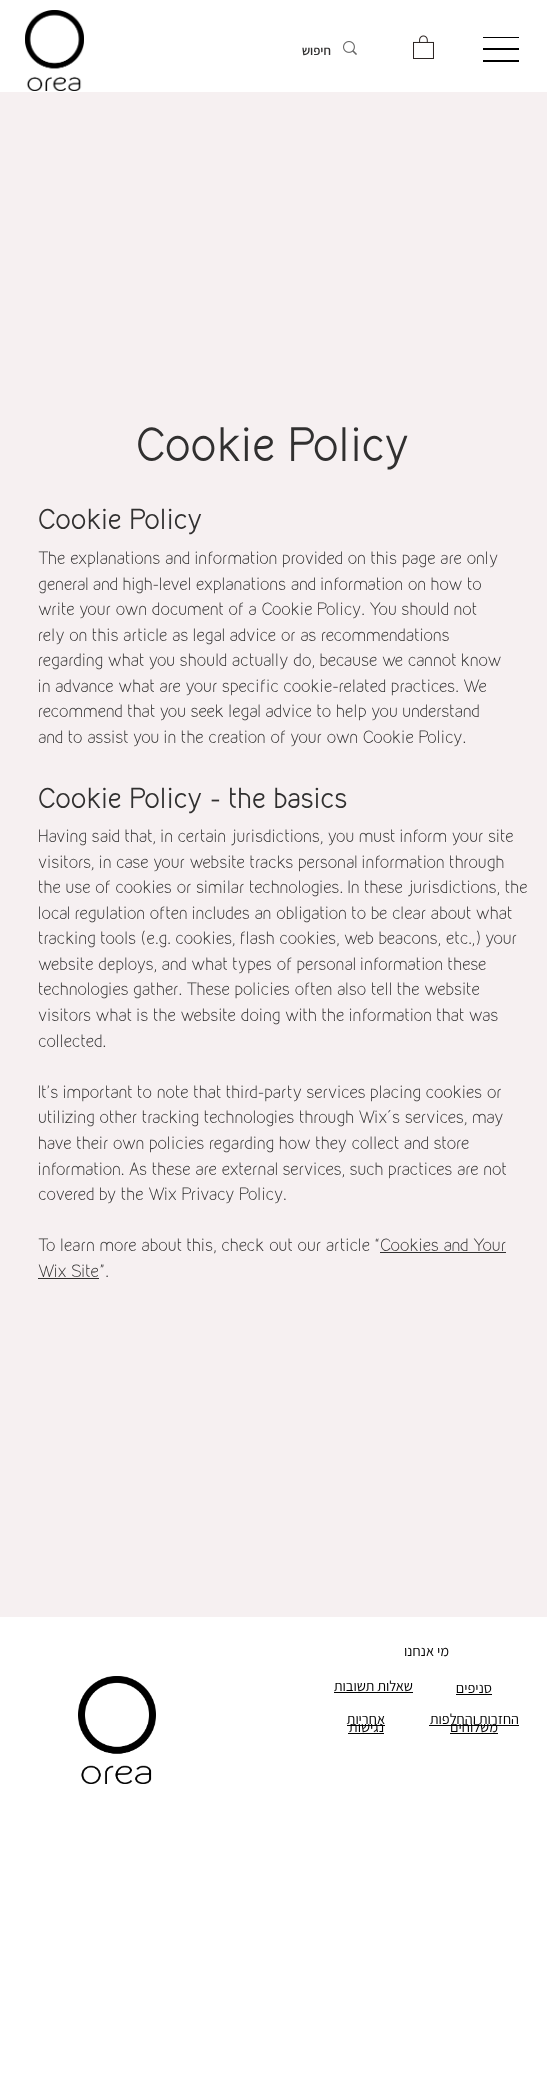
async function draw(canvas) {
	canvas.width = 547;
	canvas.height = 2096;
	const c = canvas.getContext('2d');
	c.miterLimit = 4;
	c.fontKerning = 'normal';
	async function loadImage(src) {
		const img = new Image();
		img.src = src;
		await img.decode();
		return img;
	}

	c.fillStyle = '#fff';
	c.fillRect(0, 0, 547, 2096);
	c.drawImage(await loadImage('img1.png'), 25, 10, 59, 81);
	c.direction = 'rtl';
	c.font = '600 13px Assistant';
	c.fillStyle = '#313030';
	c.fillText('חיפוש', 331, 55);
	c.drawImage(await loadImage('img2.png'), 343, 41, 14, 14);
	c.drawImage(await loadImage('img3.png'), 413, 35, 21, 24);
	for (const [x, y, w, h, color] of [
		[483, 37, 36, 1, '#000'],
		[483, 48, 36, 2, '#000'],
		[483, 60, 36, 2, '#000'],
		[0, 92, 547, 1525, '#f6f0f1'],
	]) {
		c.fillStyle = color;
		c.fillRect(x, y, w, h);
	}
	c.direction = 'ltr';
	c.font = '42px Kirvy';
	c.fillStyle = '#313030';
	c.fillText('Cookie Policy', 136, 461);
	c.font = '25.25px Kirvy';
	c.fillText('Cookie Policy', 38, 529);
	c.font = '300 16px Kirvy';
	for (const [text, x, y] of [
		['The explanations and information provided on this page are only', 38, 564],
		['general and high-level explanations and information on how to', 38, 590],
		['write your own document of a Cookie Policy. You should not', 38, 615],
		['rely on this article as legal advice or as recommendations', 38, 641],
		['regarding what you should actually do, because we cannot know', 38, 666],
		['in advance what are your specific cookie-related practices. We', 38, 692],
		['recommend that you seek legal advice to help you understand', 38, 717],
		['and to assist you in the creation of your own Cookie Policy.', 38, 743],
	]) {
		c.fillText(text, x, y);
	}
	c.font = '25.25px Kirvy';
	c.fillText('Cookie Policy - the basics', 38, 808);
	c.font = '300 16px Kirvy';
	for (const [text, x, y] of [
		['Having said that, in certain jurisdictions, you must inform your site', 38, 842],
		['visitors, in case your website tracks personal information through', 38, 868],
		['the use of cookies or similar technologies. In these jurisdictions, the', 38, 893],
		['local regulation often includes an obligation to be clear about what', 38, 919],
		['tracking tools (e.g. cookies, flash cookies, web beacons, etc.,) your', 38, 944],
		['website deploys, and what types of personal information these', 38, 970],
		['technologies gather. These policies often also tell the website', 38, 995],
		['visitors what is the website doing with the information that was', 38, 1021],
		['collected.', 38, 1047],
		['It\'s important to note that third-party services placing cookies or', 38, 1098],
		['utilizing other tracking technologies through Wix´s services, may', 38, 1123],
		['have their own policies regarding how they collect and store', 38, 1149],
		['information. As these are external services, such practices are not', 38, 1175],
		['covered by the Wix Privacy Policy.', 38, 1200],
		['To learn more about this, check out our article “Cookies and Your', 38, 1251],
	]) {
		c.fillText(text, x, y);
	}
	c.fillRect(380, 1252, 126, 1);
	c.fillText('Wix Site”.', 38, 1277);
	c.fillRect(38, 1278, 61, 1);
	c.direction = 'rtl';
	c.font = '14.5px Assistant';
	c.fillStyle = '#000';
	c.fillText('מי אנחנו', 449, 1656);
	c.drawImage(await loadImage('img4.png'), 78, 1676, 78, 108);
	c.fillText('שאלות תשובות', 413, 1691);
	c.fillRect(334, 1692, 79, 1);
	c.fillText('סניפים', 492, 1693);
	c.fillRect(456, 1694, 36, 1);
	c.fillText('אחריות', 385, 1724);
	c.fillRect(347, 1725, 38, 1);
	c.fillText('החזרות והחלפות', 519, 1724);
	c.fillRect(429, 1725, 90, 1);
	c.fillText('נגישות', 384, 1732);
	c.fillRect(348, 1733, 36, 1);
	c.fillText('משלוחים', 498, 1732);
	c.fillRect(450, 1733, 48, 1);
}

draw(document.querySelector('canvas'));
